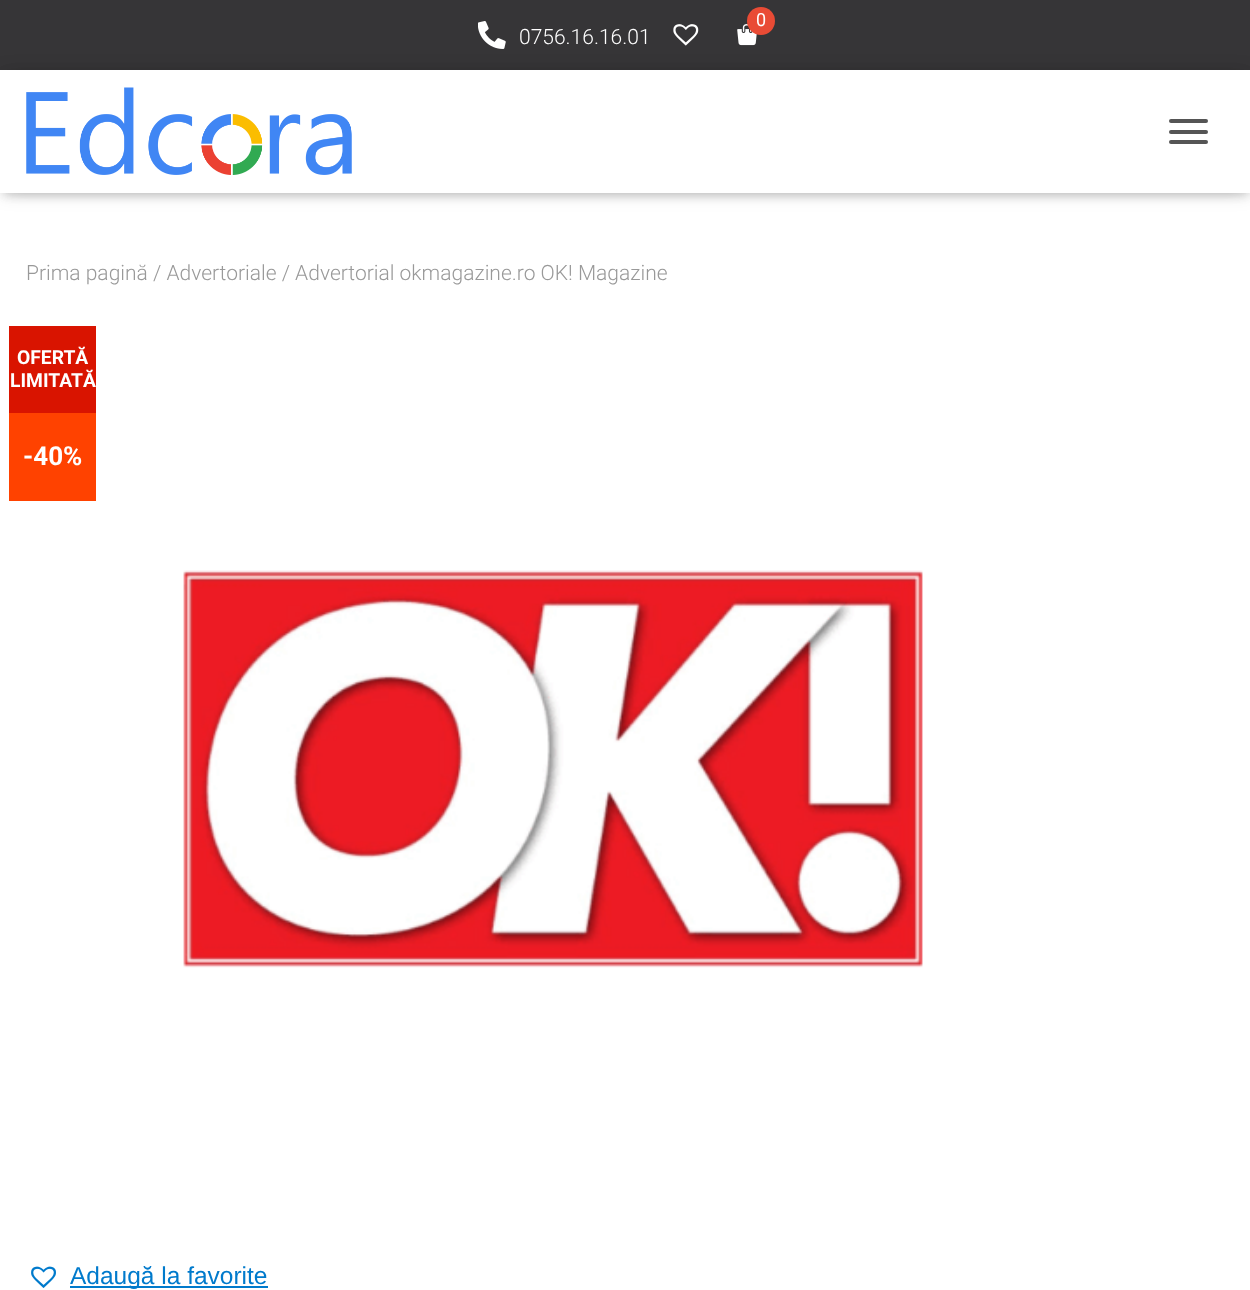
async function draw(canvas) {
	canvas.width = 1250;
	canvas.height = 1290;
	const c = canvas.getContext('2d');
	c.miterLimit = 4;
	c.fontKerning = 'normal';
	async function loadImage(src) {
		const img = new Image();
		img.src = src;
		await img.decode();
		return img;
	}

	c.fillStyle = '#363537';
	c.fillRect(0, 0, 1250, 1290);
	c.drawImage(await loadImage('img1.png'), 737, 24, 20, 22);
	c.fillStyle = '#e94b35';
	c.beginPath();
	c.arc(761, 21, 14, 0, 2 * Math.PI);
	c.fill();
	c.font = '18px Roboto';
	c.fillStyle = '#fff';
	c.fillText('0', 756, 26);
	c.drawImage(await loadImage('img2.png'), 478, 21, 28, 28);
	c.font = '300 21px Roboto';
	c.fillText('0756.16.16.01', 519, 44);
	c.drawImage(await loadImage('img3.png'), 673, 24, 26, 22);
	c.fillRect(0, 193, 1250, 1097);
	c.fillStyle = '#0000001a';
	c.filter = 'blur(4.5px)';
	c.beginPath();
	c.rect(4, 81, 1244, 115);
	c.fill();
	c.filter = 'none';
	c.fillStyle = '#0000001f';
	c.filter = 'blur(9px)';
	c.beginPath();
	c.rect(0, 72, 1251, 122);
	c.fill();
	c.filter = 'none';
	c.fillStyle = '#0000006b';
	c.filter = 'blur(9px)';
	c.beginPath();
	c.rect(11, 82, 1230, 102);
	c.fill();
	c.filter = 'none';
	c.fillStyle = '#fff';
	c.fillRect(0, 70, 1250, 123);
	c.drawImage(await loadImage('img4.png'), 26, 87, 326, 88);
	c.fillStyle = '#555';
	c.beginPath();
	c.roundRect(1169, 119, 39, 4, 2);
	c.fill();
	c.beginPath();
	c.roundRect(1169, 130, 39, 4, 2);
	c.fill();
	c.beginPath();
	c.roundRect(1169, 140, 39, 4, 2);
	c.fill();
	c.fillStyle = '#999';
	c.fillText('Prima pagină / Advertoriale / Advertorial okmagazine.ro OK! Magazine', 26, 280);
	c.fillStyle = '#d91400';
	c.fillRect(9, 326, 87, 87);
	c.font = 'bold 19.25px Roboto';
	c.fillStyle = '#fff';
	c.fillText('OFERTĂ', 17, 364);
	c.fillText('LIMITATĂ', 10, 387);
	c.fillStyle = '#ff4200';
	c.fillRect(9, 413, 87, 88);
	c.font = 'bold 26px Roboto';
	c.fillStyle = '#fff';
	c.fillText('-40%', 23, 465);
	c.drawImage(await loadImage('img5.png'), 183, 570, 740, 398);
	c.drawImage(await loadImage('img6.png'), 31, 1266, 25, 22);
	c.fillStyle = '#007acc';
	c.fillRect(70, 1286, 198, 2);
	c.font = '24.5px Liberation Sans';
	c.fillText('Adaugă la favorite', 70, 1284);
}

draw(document.querySelector('canvas'));
